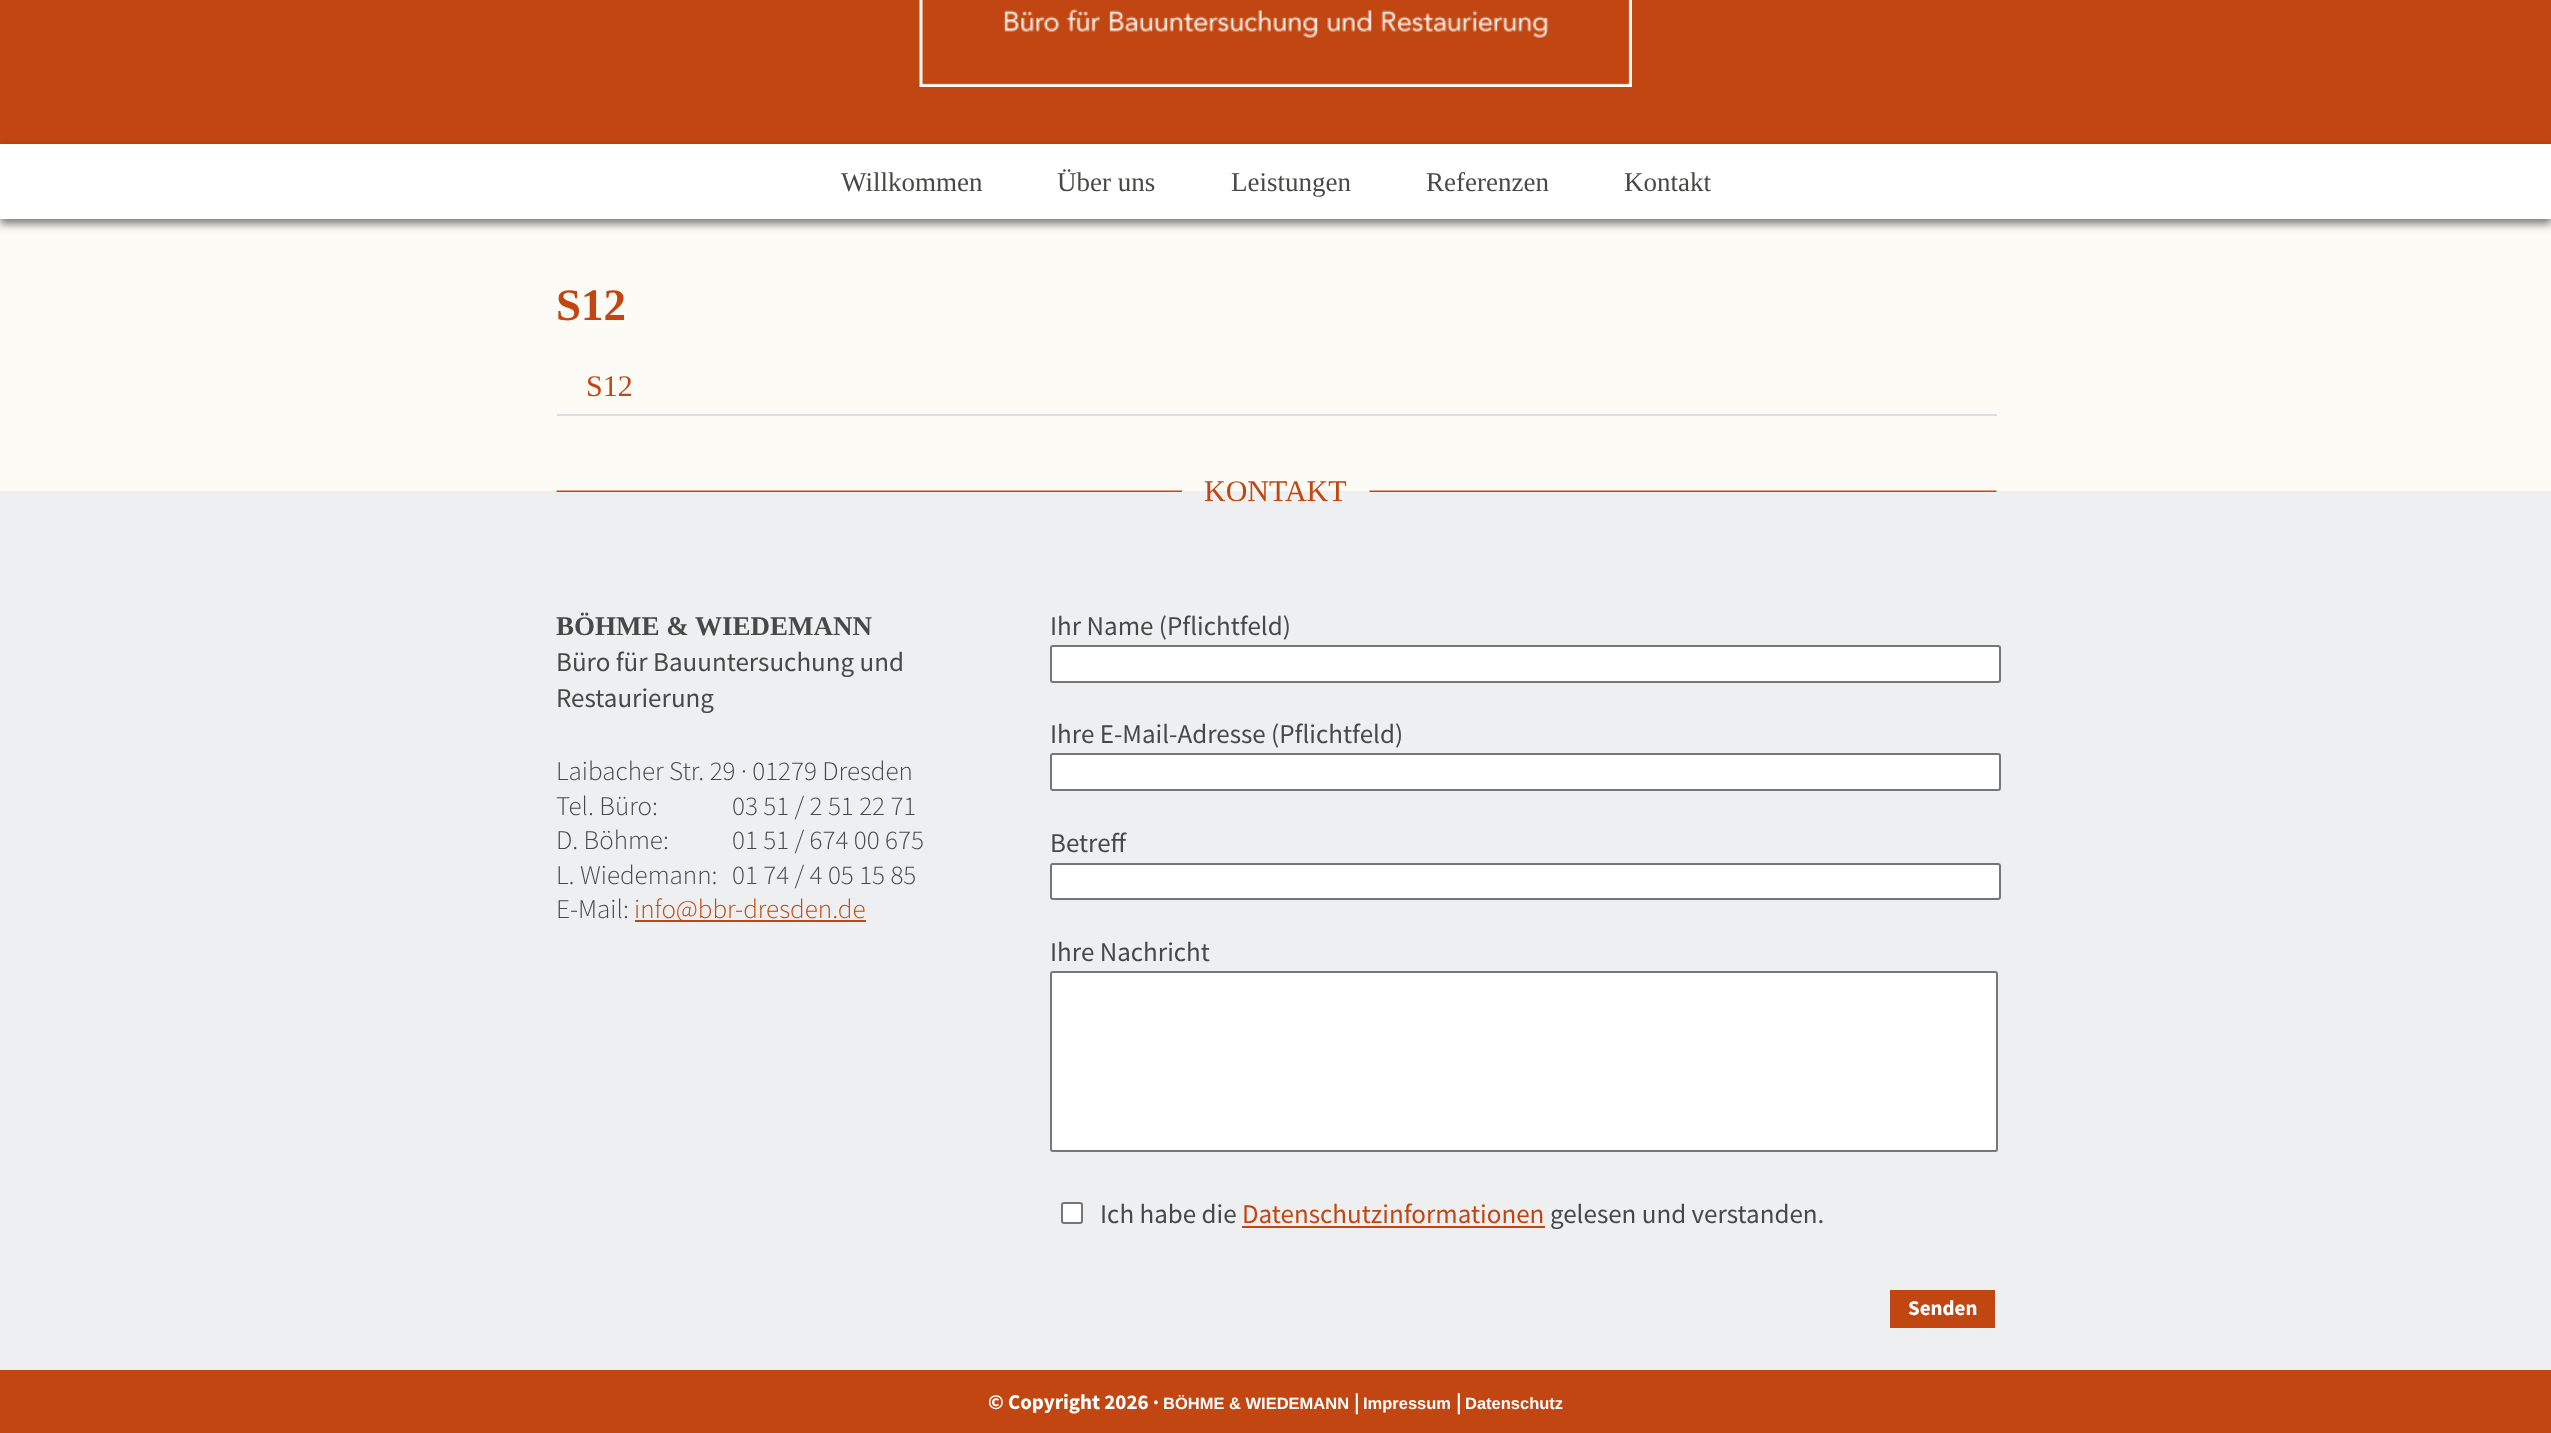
async function draw(canvas) {
	canvas.width = 2551;
	canvas.height = 1433;
	const c = canvas.getContext('2d');
	c.miterLimit = 4;
	c.fontKerning = 'normal';
	async function loadImage(src) {
		const img = new Image();
		img.src = src;
		await img.decode();
		return img;
	}

	c.fillStyle = '#fdfbf6';
	c.fillRect(0, 0, 2551, 1433);
	c.fillStyle = '#c14611';
	c.fillRect(0, 0, 2551, 144);
	c.drawImage(await loadImage('img1.png'), 919, 0, 713, 87);
	c.fillStyle = '#00000080';
	c.filter = 'blur(4px)';
	c.beginPath();
	c.rect(0, 149, 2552, 75);
	c.fill();
	c.filter = 'none';
	c.fillStyle = '#fff';
	c.fillRect(0, 144, 2551, 75);
	c.font = '27px Liberation Serif';
	c.fillStyle = '#484847';
	for (const [text, x, y] of [
		['Willkommen', 841, 191],
		['Über uns', 1057, 191],
		['Leistungen', 1231, 191],
		['Referenzen', 1426, 191],
		['Kontakt', 1624, 191],
	]) {
		c.fillText(text, x, y);
	}
	c.font = 'bold 45px Liberation Serif';
	c.fillStyle = '#c14611';
	c.fillText('S12', 556, 320);
	c.fillStyle = '#ddd';
	c.fillRect(557, 414, 1440, 2);
	c.font = '30px Liberation Serif';
	c.fillStyle = '#c14611';
	c.fillText('S12', 586, 396);
	c.fillStyle = '#eeeff1';
	c.fillRect(0, 491, 2551, 879);
	c.drawImage(await loadImage('img2.png'), 556, 490, 626, 2);
	c.fillStyle = '#c14611';
	c.fillText('KONTAKT', 1204, 501);
	c.drawImage(await loadImage('img3.png'), 1369, 490, 628, 2);
	c.font = 'bold 27px Liberation Serif';
	c.fillStyle = '#484847';
	c.fillText('BÖHME & WIEDEMANN', 556, 635);
	c.font = '27px Source Sans Pro';
	c.fillText('Büro für Bauuntersuchung und', 556, 671);
	c.fillText('Restaurierung', 556, 707);
	c.font = '300 27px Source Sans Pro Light';
	for (const [text, x, y] of [
		['Laibacher Str. 29 · 01279 Dresden', 556, 780],
		['Tel. Büro:', 556, 815],
		['03 51 / 2 51 22 71', 732, 815],
		['D. Böhme:', 556, 849],
		['01 51 / 674 00 675', 732, 849],
		['L. Wiedemann:', 556, 884],
		['01 74 / 4 05 15 85', 732, 884],
		['E-Mail:', 556, 918],
	]) {
		c.fillText(text, x, y);
	}
	c.fillStyle = '#c14611';
	c.fillRect(635, 920, 231, 2);
	c.fillText('info@bbr-dresden.de', 634, 918);
	c.font = '27px Source Sans Pro';
	c.fillStyle = '#484847';
	c.fillText('Ihr Name (Pflichtfeld)', 1050, 635);
	c.fillStyle = '#fff';
	c.beginPath();
	c.roundRect(1051, 646, 949, 36, 2);
	c.fill();
	c.strokeStyle = '#767676';
	c.lineWidth = 2;
	c.stroke();
	c.fillStyle = '#484847';
	c.fillText('Ihre E-Mail-Adresse (Pflichtfeld)', 1050, 743);
	c.fillStyle = '#fff';
	c.beginPath();
	c.roundRect(1051, 754, 949, 36, 2);
	c.fill();
	c.stroke();
	c.fillStyle = '#484847';
	c.fillText('Betreff', 1050, 852);
	c.fillStyle = '#fff';
	c.beginPath();
	c.roundRect(1051, 864, 949, 35, 2);
	c.fill();
	c.stroke();
	c.fillStyle = '#484847';
	c.fillText('Ihre Nachricht', 1050, 961);
	c.fillStyle = '#fff';
	c.beginPath();
	c.roundRect(1051, 972, 946, 179, 2);
	c.fill();
	c.stroke();
	c.beginPath();
	c.roundRect(1062, 1203, 20, 20, 2);
	c.fill();
	c.stroke();
	c.fillStyle = '#484847';
	c.fillText('Ich habe die', 1100, 1223);
	c.fillStyle = '#c14611';
	c.fillText('Datenschutzinformationen', 1242, 1223);
	c.fillStyle = '#484847';
	c.fillText('gelesen und verstanden.', 1550, 1223);
	c.fillStyle = '#c14611';
	c.fillRect(1242, 1226, 303, 2);
	c.fillRect(1890, 1290, 105, 38);
	c.font = 'bold 21px Source Sans Pro';
	c.fillStyle = '#fff';
	c.fillText('Senden', 1908, 1315);
	c.fillStyle = '#c14611';
	c.fillRect(0, 1370, 2551, 63);
	c.fillStyle = '#fff';
	c.fillText('© Copyright 2026 ·', 988, 1409);
	c.font = 'bold 16.5px Liberation Sans';
	c.fillText('BÖHME & WIEDEMANN', 1163, 1409);
	c.font = 'bold 21px Source Sans Pro';
	c.fillText('|', 1354, 1409);
	c.font = 'bold 16.5px Liberation Sans';
	c.fillText('Impressum', 1363, 1409);
	c.font = 'bold 21px Source Sans Pro';
	c.fillText('|', 1456, 1409);
	c.font = 'bold 16.5px Liberation Sans';
	c.fillText('Datenschutz', 1465, 1409);
}

draw(document.querySelector('canvas'));
